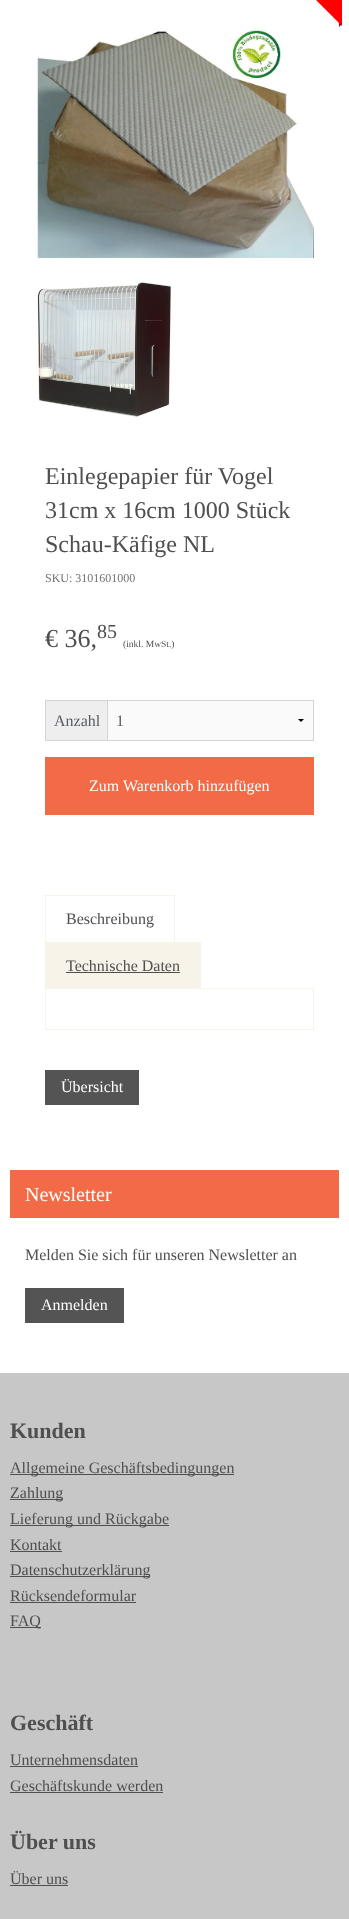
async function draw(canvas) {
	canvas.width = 349;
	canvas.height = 1919;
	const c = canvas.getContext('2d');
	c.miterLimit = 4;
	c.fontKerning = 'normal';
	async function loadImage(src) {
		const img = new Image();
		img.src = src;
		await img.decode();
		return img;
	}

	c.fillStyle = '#fff';
	c.fillRect(0, 0, 349, 1919);
	c.fillStyle = '#900';
	c.beginPath();
	c.moveTo(339, 27);
	c.lineTo(339, 21);
	c.lineTo(342, 24);
	c.closePath();
	c.fill();
	c.save();
	c.beginPath();
	c.rect(222, 0, 120, 45);
	c.clip();
	c.fillStyle = '#f00';
	c.beginPath();
	c.moveTo(253, -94);
	c.lineTo(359, 12);
	c.lineTo(343, 27);
	c.lineTo(237, -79);
	c.closePath();
	c.fill();
	c.restore();
	c.drawImage(await loadImage('img1.png'), 36, 30, 278, 229);
	c.drawImage(await loadImage('img2.png'), 37, 282, 134, 135);
	c.font = '24px Liberation Serif';
	c.fillStyle = '#4f4f4f';
	for (const [text, x, y] of [
		['Einlegepapier für Vogel', 45, 484],
		['31cm x 16cm 1000 Stück', 45, 518],
		['Schau-Käfige NL', 45, 552],
	]) {
		c.fillText(text, x, y);
	}
	c.font = '12px Liberation Serif';
	c.fillStyle = '#727272';
	c.fillText('SKU: 3101601000', 45, 582);
	c.font = '26px Liberation Serif';
	c.fillStyle = '#4f4f4f';
	c.fillText('€ 36,', 45, 647);
	c.font = '20px Liberation Serif';
	c.fillText('85', 97, 638);
	c.font = '9.5px Liberation Serif';
	c.fillText('(inkl. MwSt.)', 123, 647);
	for (const [x, y, w, h, color] of [
		[107, 700, 1, 40, '#d3d5d9'],
		[45, 700, 269, 1, '#d3d5d9'],
		[313, 700, 1, 41, '#d3d5d9'],
		[45, 740, 269, 1, '#d3d5d9'],
		[45, 700, 1, 41, '#d3d5d9'],
		[46, 701, 61, 39, '#eee'],
	]) {
		c.fillStyle = color;
		c.fillRect(x, y, w, h);
	}
	c.font = '16px Liberation Serif';
	c.fillStyle = '#575b62';
	c.fillText('Anzahl', 54, 726);
	c.fillStyle = '#fafafa';
	c.fillRect(108, 701, 205, 39);
	c.fillStyle = '#000';
	c.beginPath();
	c.moveTo(304, 719);
	c.lineTo(301, 722);
	c.lineTo(298, 719);
	c.closePath();
	c.fill();
	c.fillStyle = '#575b62';
	c.fillText('1', 116, 726);
	c.fillStyle = '#f36a46';
	c.fillRect(45, 757, 269, 58);
	c.fillStyle = '#fff';
	c.fillText('Zum Warenkorb hinzufügen', 89, 791);
	c.fillStyle = '#f7f3e9';
	c.fillRect(45, 895, 130, 1);
	c.beginPath();
	c.moveTo(175, 895);
	c.lineTo(175, 943);
	c.lineTo(174, 942);
	c.lineTo(174, 896);
	c.closePath();
	c.fill();
	c.beginPath();
	c.moveTo(45, 943);
	c.lineTo(45, 895);
	c.lineTo(46, 896);
	c.lineTo(46, 942);
	c.closePath();
	c.fill();
	c.fillStyle = '#4f4f4f';
	c.fillText('Beschreibung', 66, 924);
	c.fillStyle = '#f7f3e9';
	c.fillRect(45, 942, 156, 46);
	c.fillStyle = '#4f4f4f';
	c.fillText('Technische Daten', 66, 971);
	c.fillRect(66, 972, 114, 1);
	c.strokeStyle = '#f7f3e9';
	c.strokeRect(45.5, 988.5, 268, 41);
	c.fillStyle = '#545454';
	c.fillRect(45, 1070, 94, 35);
	c.fillStyle = '#fff';
	c.fillText('Übersicht', 61, 1092);
	c.fillStyle = '#f36a46';
	c.fillRect(10, 1170, 329, 48);
	c.font = '20px Liberation Serif';
	c.fillStyle = '#fff';
	c.fillText('Newsletter', 25, 1201);
	c.font = '16px Liberation Serif';
	c.fillStyle = '#4f4f4f';
	c.fillText('Melden Sie sich für unseren Newsletter an', 25, 1260);
	c.fillStyle = '#545454';
	c.fillRect(25, 1288, 99, 35);
	c.fillStyle = '#fff';
	c.fillText('Anmelden', 41, 1310);
	c.fillStyle = '#c7c7c7';
	c.fillRect(0, 1373, 349, 546);
	c.font = 'bold 22px Liberation Serif';
	c.fillStyle = '#4f4f4f';
	c.fillText('Kunden', 10, 1438);
	c.fillRect(10, 1474, 224, 1);
	c.font = '16px Liberation Serif';
	c.fillText('Allgemeine Geschäftsbedingungen', 10, 1473);
	c.fillRect(10, 1499, 53, 1);
	c.fillText('Zahlung', 10, 1498);
	c.fillRect(10, 1525, 159, 1);
	c.fillText('Lieferung und Rückgabe', 10, 1524);
	c.fillText('Kontakt', 10, 1550);
	c.fillRect(10, 1551, 52, 1);
	c.fillRect(10, 1576, 140, 1);
	c.fillText('Datenschutzerklärung', 10, 1575);
	c.fillText('Rücksendeformular', 10, 1601);
	c.fillRect(10, 1602, 126, 1);
	c.fillRect(10, 1627, 31, 1);
	c.fillText('FAQ', 10, 1626);
	c.font = 'bold 22px Liberation Serif';
	c.fillText('Geschäft', 10, 1730);
	c.font = '16px Liberation Serif';
	c.fillText('Unternehmensdaten', 10, 1765);
	c.fillRect(10, 1766, 128, 1);
	c.fillText('Geschäftskunde werden', 10, 1791);
	c.fillRect(10, 1792, 153, 1);
	c.font = 'bold 22px Liberation Serif';
	c.fillText('Über uns', 10, 1849);
	c.font = '16px Liberation Serif';
	c.fillText('Über uns', 10, 1884);
	c.fillRect(10, 1885, 58, 1);
}

draw(document.querySelector('canvas'));
